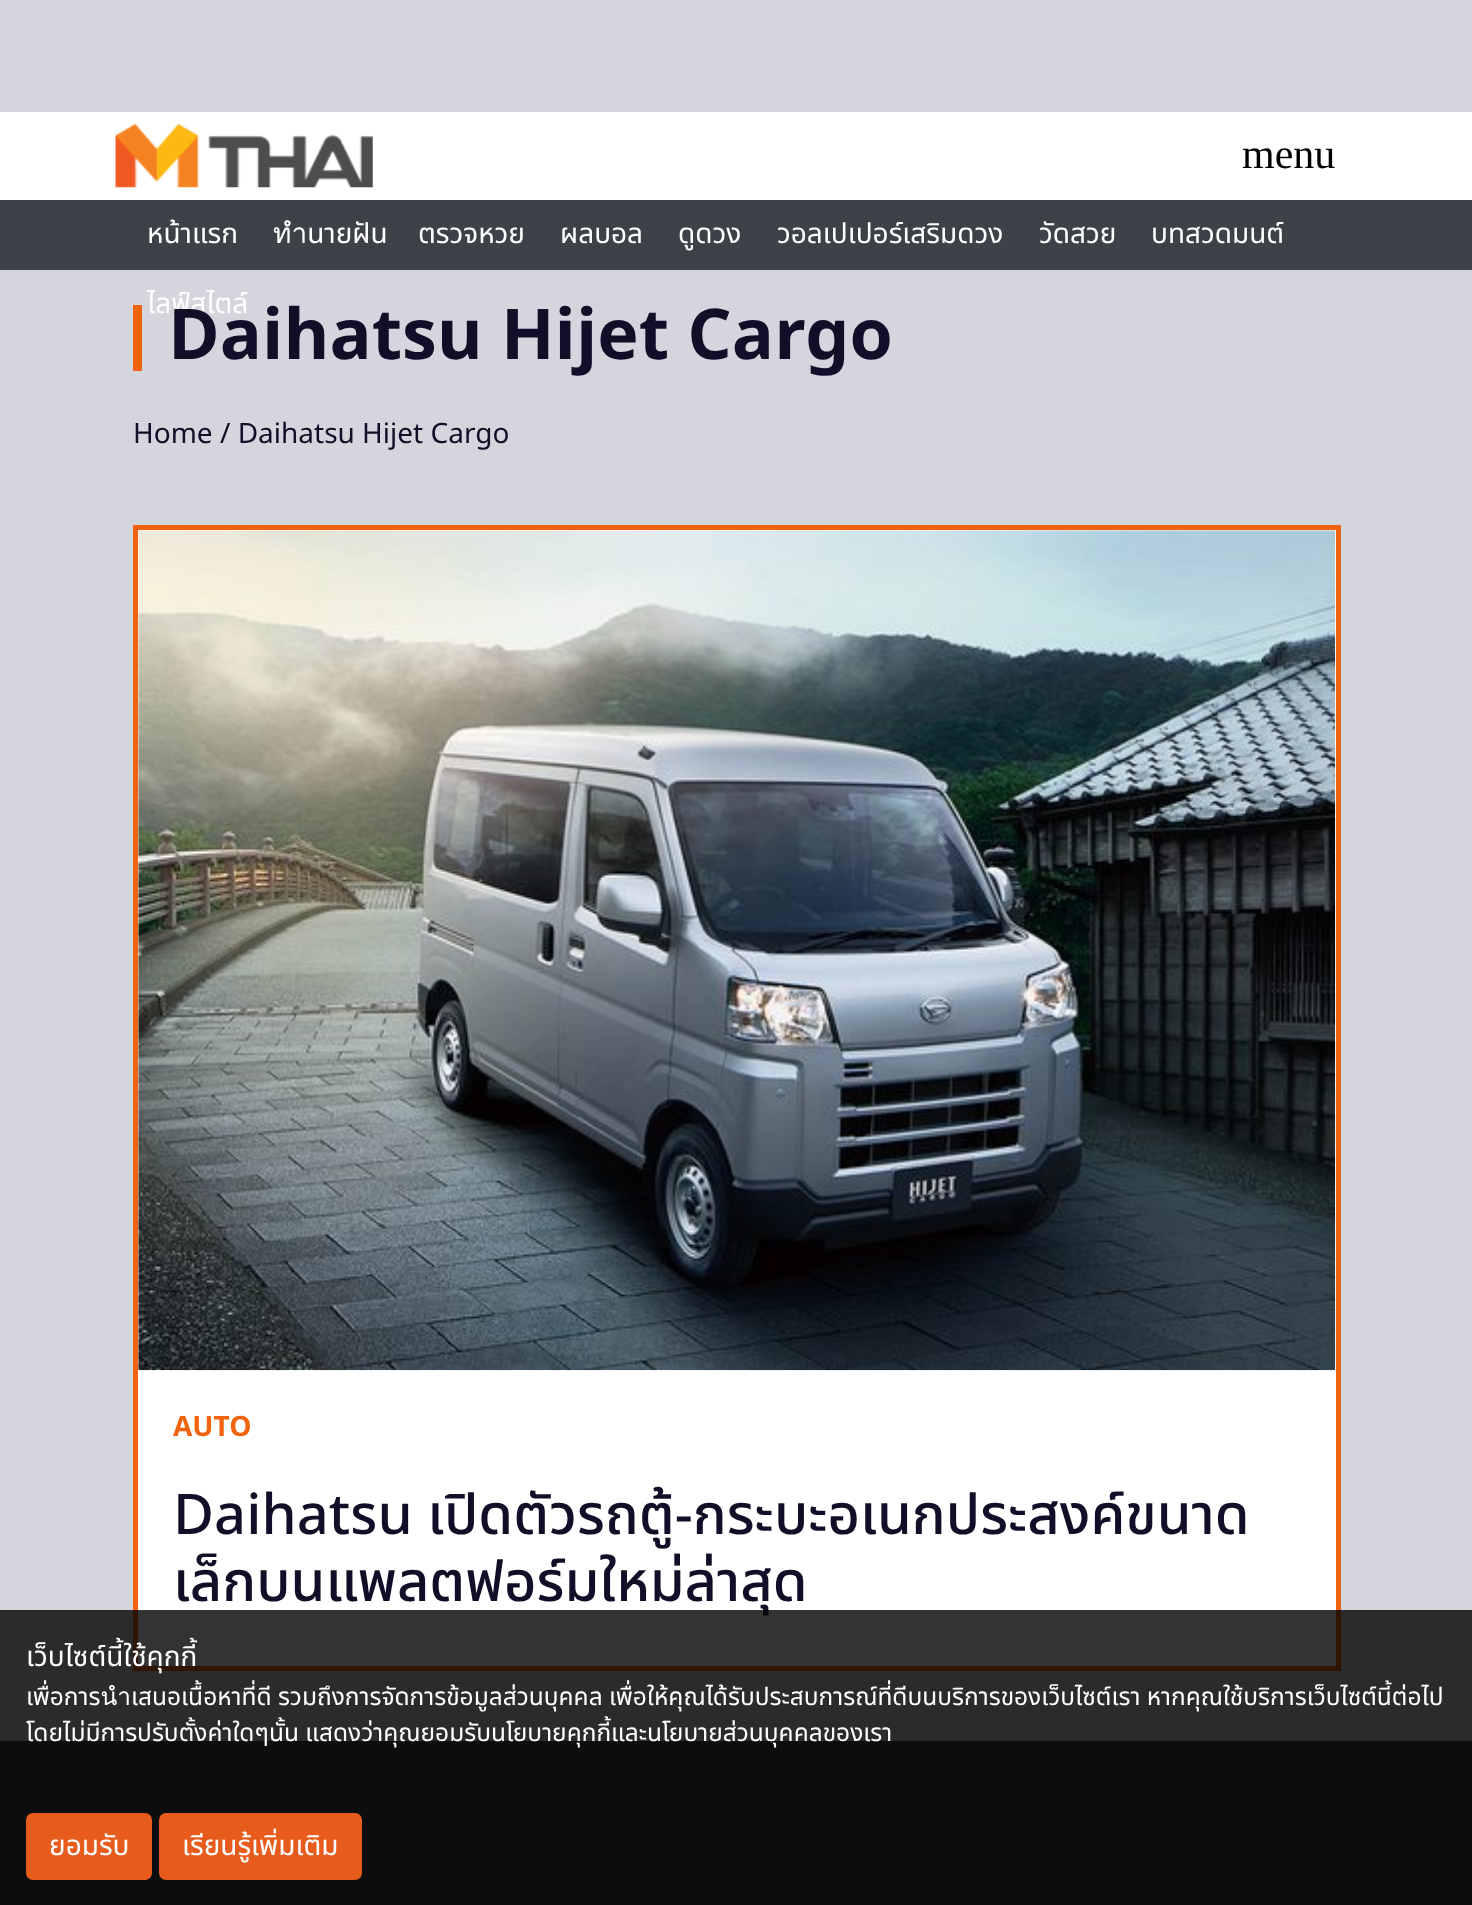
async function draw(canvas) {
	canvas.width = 1472;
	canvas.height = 1905;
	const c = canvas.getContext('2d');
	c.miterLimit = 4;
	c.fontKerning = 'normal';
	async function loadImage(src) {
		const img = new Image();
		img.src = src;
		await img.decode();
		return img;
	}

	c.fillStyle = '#fff';
	c.fillRect(0, 0, 1472, 1905);
	c.fillStyle = '#d5d5dd';
	c.fillRect(0, 0, 1472, 112);
	c.drawImage(await loadImage('img1.png'), 115, 124, 258, 64);
	c.font = '42px Liberation Serif';
	c.fillStyle = '#000';
	c.fillText('menu', 1242, 168);
	c.fillStyle = '#3d4248';
	c.fillRect(0, 200, 1472, 70);
	c.font = '28px Noto Sans Thai';
	c.fillStyle = '#fff';
	for (const [text, x, y] of [
		['หน้าแรก', 147, 243],
		['ทำนายฝัน', 273, 243],
		['ตรวจหวย', 418, 243],
		['ผลบอล', 560, 243],
		['ดูดวง', 678, 243],
		['วอลเปเปอร์เสริมดวง', 777, 243],
		['วัดสวย', 1039, 243],
		['บทสวดมนต์', 1151, 243],
	]) {
		c.fillText(text, x, y);
	}
	c.fillStyle = '#d5d5dd';
	c.fillRect(0, 270, 1472, 1471);
	c.fillStyle = '#fff';
	c.fillText('ไลฟ์สไตล์', 147, 313);
	c.fillStyle = '#f1630d';
	c.fillRect(133, 305, 9, 66);
	c.font = 'bold 70px Noto Sans Thai';
	c.fillStyle = '#110f27';
	c.fillText('Daihatsu Hijet Cargo', 168, 359);
	c.font = '28px Noto Sans Thai';
	c.fillText('Home / Daihatsu Hijet Cargo', 133, 443);
	c.fillStyle = '#fff';
	c.beginPath();
	c.rect(135.5, 527.5, 1203, 1141);
	c.fill();
	c.strokeStyle = '#f1630d';
	c.lineWidth = 5;
	c.stroke();
	c.drawImage(await loadImage('img2.png'), 138, 530, 1198, 841);
	c.font = 'bold 28px Noto Sans Thai';
	c.fillStyle = '#f1630d';
	c.fillText('AUTO', 173, 1436);
	c.font = '500 56px Noto Sans Thai';
	c.fillStyle = '#110f27';
	c.fillText('Daihatsu เปิดตัวรถตู้-กระบะอเนกประสงค์ขนาด', 173, 1534);
	c.fillText('เล็กบนแพลตฟอร์มใหม่ล่าสุด', 173, 1601);
	c.fillStyle = '#3d4248';
	c.fillRect(0, 1741, 1472, 164);
	c.fillStyle = '#000000cc';
	c.fillRect(0, 1610, 1472, 295);
	c.font = '28px Noto Sans Thai';
	c.fillStyle = '#fff';
	c.fillText('เว็บไซต์นี้ใช้คุกกี้', 26, 1666);
	c.font = '24.5px Noto Sans Thai';
	c.fillText('เพื่อการนำเสนอเนื้อหาที่ดี รวมถึงการจัดการข้อมูลส่วนบุคคล เพื่อให้คุณได้รับประสบการณ์ที่ดีบนบริการของเว็บไซต์เรา หากคุณใช้บริการเว็บไซต์นี้ต่อไป', 26, 1705);
	c.fillText('โดยไม่มีการปรับตั้งค่าใดๆนั้น แสดงว่าคุณยอมรับนโยบายคุกกี้และนโยบายส่วนบุคคลของเรา', 26, 1741);
	c.fillStyle = '#e75c1d';
	c.beginPath();
	c.roundRect(27, 1814, 124, 65, 6);
	c.fill();
	c.strokeStyle = '#e75c1d';
	c.lineWidth = 2;
	c.stroke();
	c.font = '28px Noto Sans Thai';
	c.fillStyle = '#fff';
	c.fillText('ยอมรับ', 49, 1855);
	c.fillStyle = '#e75c1d';
	c.beginPath();
	c.roundRect(160, 1814, 201, 65, 6);
	c.fill();
	c.stroke();
	c.fillStyle = '#fff';
	c.fillText('เรียนรู้เพิ่มเติม', 182, 1855);
}

draw(document.querySelector('canvas'));
